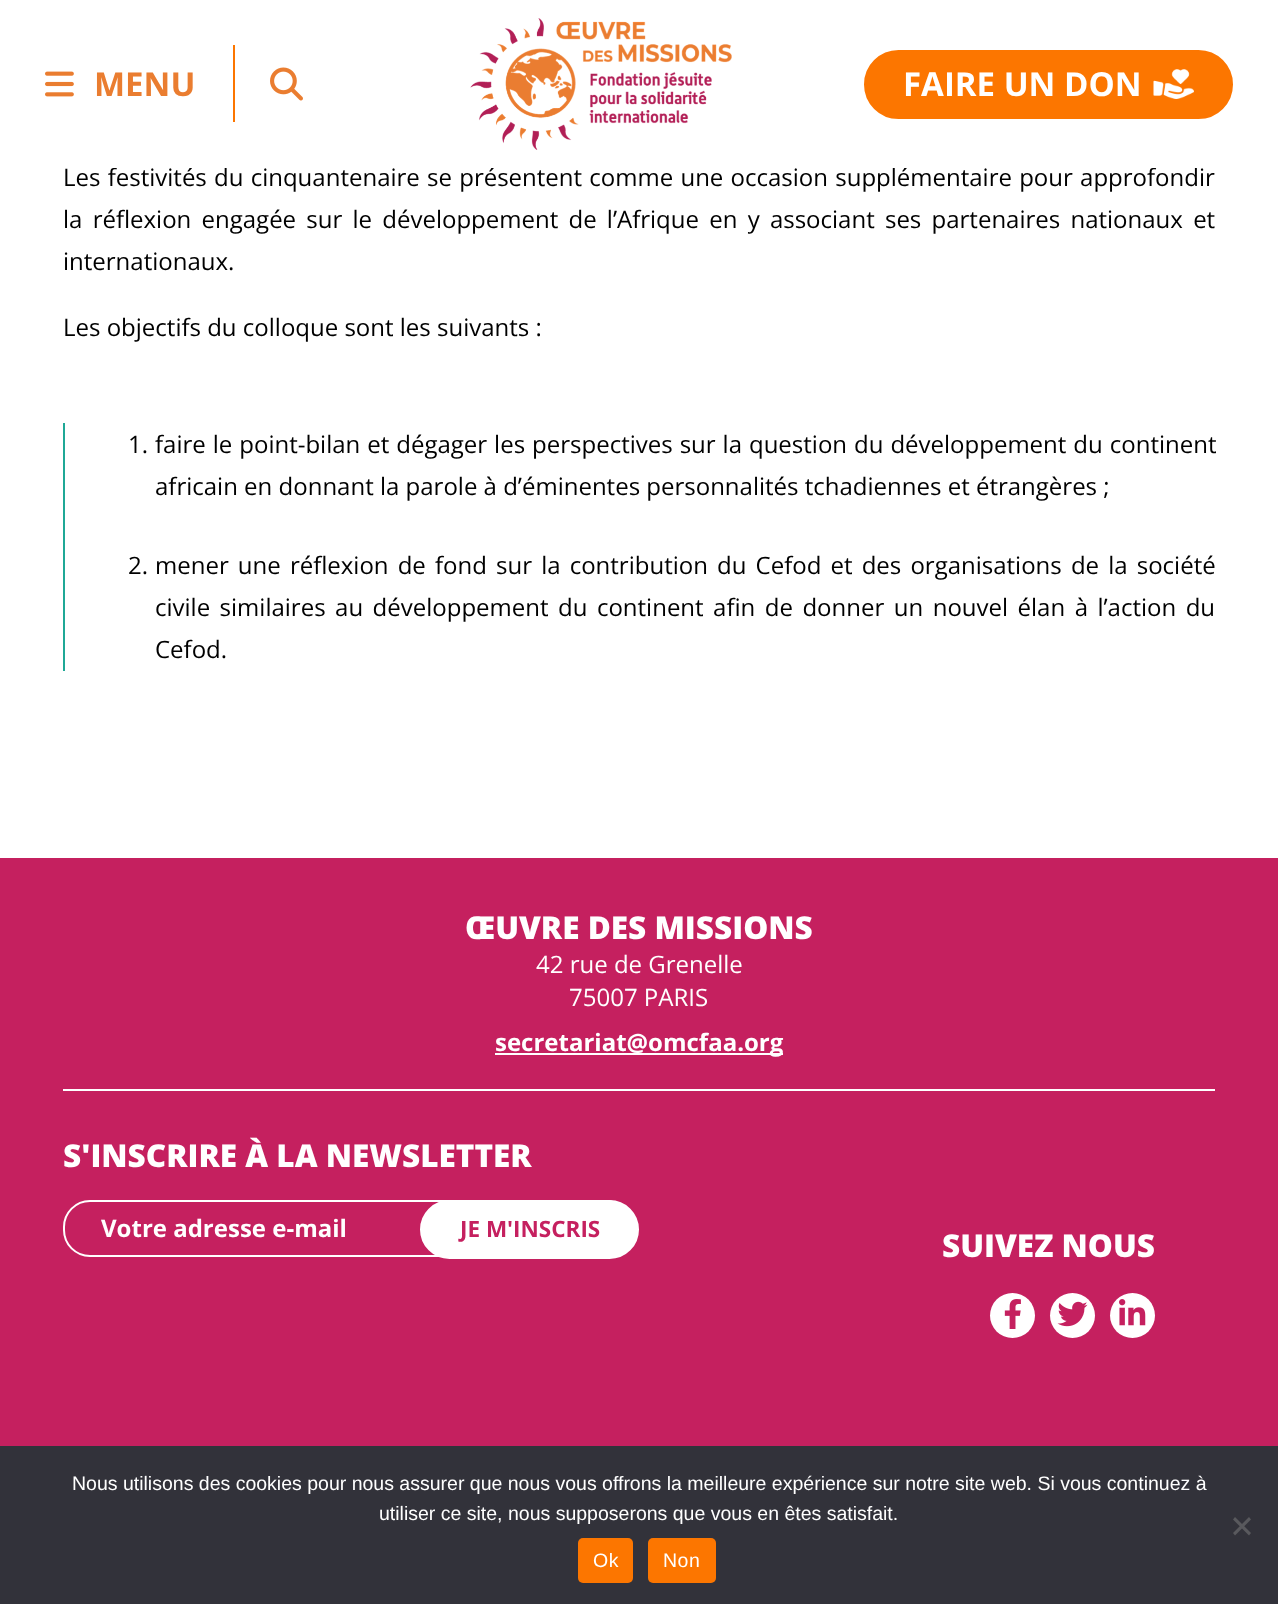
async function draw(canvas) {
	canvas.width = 1278;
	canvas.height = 1604;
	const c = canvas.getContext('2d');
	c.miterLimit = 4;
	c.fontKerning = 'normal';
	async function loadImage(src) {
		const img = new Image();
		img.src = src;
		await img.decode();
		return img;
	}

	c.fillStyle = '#fff';
	c.fillRect(0, 0, 1278, 1604);
	c.wordSpacing = '1px';
	c.font = '24px Open Sans';
	c.fillStyle = '#000';
	c.fillText('Les festivités du cinquantenaire se présentent comme une occasion supplémentaire pour approfondir', 63, 186);
	c.fillStyle = '#fff';
	c.fillRect(112, 167, 1086, 1);
	c.fillStyle = '#fc7600';
	c.fillRect(233, 45, 2, 77);
	c.drawImage(await loadImage('img1.png'), 45, 71, 29, 26);
	c.wordSpacing = '0px';
	c.font = 'bold 33px Open Sans';
	c.fillStyle = '#ea7d30';
	c.fillText('MENU', 94, 96);
	c.drawImage(await loadImage('img2.png'), 270, 67, 33, 34);
	c.drawImage(await loadImage('img3.png'), 470, 18, 262, 132);
	c.fillStyle = '#fc7600';
	c.beginPath();
	c.roundRect(865, 51, 367, 67, 33.5);
	c.fill();
	c.strokeStyle = '#fc7600';
	c.lineWidth = 2;
	c.stroke();
	c.fillStyle = '#fff';
	c.fillText('FAIRE UN DON', 903, 96);
	c.drawImage(await loadImage('img4.png'), 1153, 69, 41, 30);
	c.wordSpacing = '4px';
	c.font = '24px Open Sans';
	c.fillStyle = '#000';
	c.fillText('la réflexion engagée sur le développement de l’Afrique en y associant ses partenaires nationaux et', 63, 228);
	c.wordSpacing = '0px';
	c.fillText('internationaux.', 63, 270);
	c.fillText('Les objectifs du colloque sont les suivants :', 63, 336);
	c.fillStyle = '#1fa896';
	c.fillRect(63, 423, 2, 248);
	c.fillStyle = '#000';
	c.fillText('1.', 128, 453);
	c.wordSpacing = '0.75px';
	c.fillText('faire le point-bilan et dégager les perspectives sur la question du développement du continent', 155, 453);
	c.wordSpacing = '0px';
	c.fillText('africain en donnant la parole à d’éminentes personnalités tchadiennes et étrangères ;', 155, 495);
	c.fillText('2.', 128, 574);
	c.wordSpacing = '2.9px';
	c.fillText('mener une réflexion de fond sur la contribution du Cefod et des organisations de la société', 155, 574);
	c.wordSpacing = '3.25px';
	c.fillText('civile similaires au développement du continent afin de donner un nouvel élan à l’action du', 155, 616);
	c.wordSpacing = '0px';
	c.fillText('Cefod.', 155, 658);
	c.fillStyle = '#c5205f';
	c.fillRect(0, 858, 1278, 588);
	c.fillStyle = '#fff';
	c.fillRect(63, 1089, 1152, 2);
	c.font = '800 31.5px Open Sans';
	c.fillText('ŒUVRE DES MISSIONS', 465, 939);
	c.font = '24px Open Sans';
	c.fillText('42 rue de Grenelle', 536, 973);
	c.fillText('75007 PARIS', 569, 1006);
	c.fillRect(495, 1053, 288, 2);
	c.font = 'bold 24px Open Sans';
	c.fillText('secretariat@omcfaa.org', 495, 1051);
	c.font = '800 31.5px Open Sans';
	c.fillText('S\'INSCRIRE À LA NEWSLETTER', 63, 1167);
	c.beginPath();
	c.roundRect(64, 1201, 568, 55, 26);
	c.strokeStyle = '#fff';
	c.stroke();
	c.font = 'bold 24px Open Sans';
	c.fillText('Votre adresse e-mail', 101, 1237);
	c.beginPath();
	c.roundRect(421, 1201, 217, 57, 28.5);
	c.fill();
	c.stroke();
	c.font = 'bold 22.5px Open Sans';
	c.fillStyle = '#c5205f';
	c.fillText('JE M\'INSCRIS', 460, 1237);
	c.font = '800 31.5px Open Sans';
	c.fillStyle = '#fff';
	c.fillText('SUIVEZ NOUS', 942, 1257);
	c.beginPath();
	c.arc(1012.5, 1315.5, 22.5, 0, 2 * Math.PI);
	c.fill();
	c.drawImage(await loadImage('img5.png'), 1004, 1299, 17, 30);
	c.beginPath();
	c.arc(1072.5, 1315.5, 22.5, 0, 2 * Math.PI);
	c.fill();
	c.drawImage(await loadImage('img6.png'), 1057, 1301, 31, 26);
	c.beginPath();
	c.arc(1132.5, 1315.5, 22.5, 0, 2 * Math.PI);
	c.fill();
	c.drawImage(await loadImage('img7.png'), 1119, 1299, 27, 27);
	c.fillStyle = '#32323a';
	c.fillRect(0, 1446, 1278, 158);
	c.font = '19.5px Liberation Sans';
	c.fillStyle = '#fff';
	c.fillText('Nous utilisons des cookies pour nous assurer que nous vous offrons la meilleure expérience sur notre site web. Si vous continuez à', 72, 1490);
	c.fillText('utiliser ce site, nous supposerons que vous en êtes satisfait.', 379, 1520);
	c.fillStyle = '#59595d';
	c.beginPath();
	c.moveTo(1249, 1517);
	c.lineTo(1251, 1519.5);
	c.lineTo(1235, 1535.5);
	c.lineTo(1233, 1533);
	c.closePath();
	c.fill();
	c.beginPath();
	c.moveTo(1233, 1519.5);
	c.lineTo(1235, 1517);
	c.lineTo(1251, 1533);
	c.lineTo(1249, 1535.5);
	c.closePath();
	c.fill();
	c.fillStyle = '#fc7600';
	c.beginPath();
	c.roundRect(578, 1538, 55, 45, 5);
	c.fill();
	c.letterSpacing = '0.5px';
	c.fillStyle = '#fff';
	c.fillText('Ok', 593, 1567);
	c.fillStyle = '#fc7600';
	c.beginPath();
	c.roundRect(648, 1538, 68, 45, 5);
	c.fill();
	c.fillStyle = '#fff';
	c.fillText('Non', 663, 1567);
}

draw(document.querySelector('canvas'));
